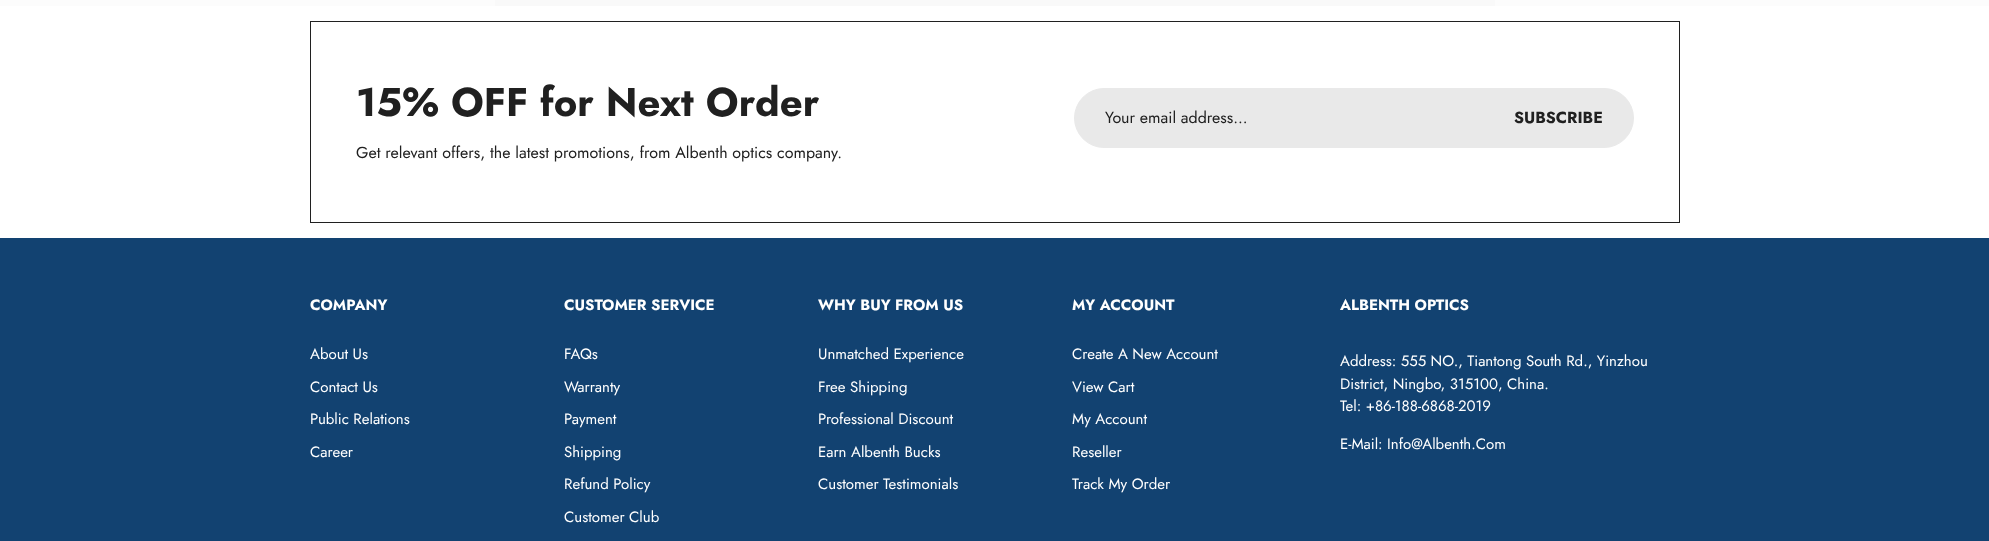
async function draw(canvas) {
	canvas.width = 1989;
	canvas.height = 541;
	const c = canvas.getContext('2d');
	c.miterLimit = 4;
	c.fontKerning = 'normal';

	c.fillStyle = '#fcfcfc';
	c.fillRect(0, 0, 1989, 541);
	c.fillStyle = '#f9f9f9';
	c.fillRect(495, 0, 1000, 6);
	c.fillStyle = '#fff';
	c.fillRect(0, 6, 1989, 232);
	c.strokeStyle = '#202020';
	c.strokeRect(310.5, 21.5, 1369, 201);
	c.font = 'bold 40px Jost';
	c.fillStyle = '#202020';
	c.fillText('15% OFF for Next Order', 356, 116);
	c.font = '16px Jost';
	c.fillText('Get relevant offers, the latest promotions, from Albenth optics company.', 356, 158);
	c.fillStyle = '#e9e9e9';
	c.beginPath();
	c.roundRect(1074.5, 88.5, 559, 59, 29.5);
	c.fill();
	c.strokeStyle = '#e9e9e9';
	c.stroke();
	c.fillStyle = '#202020';
	c.fillText('Your email address...', 1105, 123);
	c.font = 'bold 16px Jost';
	c.fillText('SUBSCRIBE', 1514, 123);
	c.fillStyle = '#124271';
	c.fillRect(0, 238, 1989, 303);
	c.font = 'bold 15px Jost';
	c.fillStyle = '#fff';
	c.fillText('COMPANY', 310, 310);
	c.font = '15px Jost';
	for (const [text, x, y] of [
		['About Us', 310, 359],
		['Contact Us', 310, 392],
		['Public Relations', 310, 424],
		['Career', 310, 457],
	]) {
		c.fillText(text, x, y);
	}
	c.font = 'bold 15px Jost';
	c.fillText('CUSTOMER SERVICE', 564, 310);
	c.font = '15px Jost';
	for (const [text, x, y] of [
		['FAQs', 564, 359],
		['Warranty', 564, 392],
		['Payment', 564, 424],
		['Shipping', 564, 457],
		['Refund Policy', 564, 489],
		['Customer Club', 564, 522],
	]) {
		c.fillText(text, x, y);
	}
	c.font = 'bold 15px Jost';
	c.fillText('WHY BUY FROM US', 818, 310);
	c.font = '15px Jost';
	for (const [text, x, y] of [
		['Unmatched Experience', 818, 359],
		['Free Shipping', 818, 392],
		['Professional Discount', 818, 424],
		['Earn Albenth Bucks', 818, 457],
		['Customer Testimonials', 818, 489],
	]) {
		c.fillText(text, x, y);
	}
	c.font = 'bold 15px Jost';
	c.fillText('MY ACCOUNT', 1072, 310);
	c.font = '15px Jost';
	for (const [text, x, y] of [
		['Create A New Account', 1072, 359],
		['View Cart', 1072, 392],
		['My Account', 1072, 424],
		['Reseller', 1072, 457],
		['Track My Order', 1072, 489],
	]) {
		c.fillText(text, x, y);
	}
	c.font = 'bold 15px Jost';
	c.fillText('ALBENTH OPTICS', 1340, 310);
	c.font = '15px Jost';
	for (const [text, x, y] of [
		['Address: 555 NO., Tiantong South Rd., Yinzhou', 1340, 366],
		['District, Ningbo, 315100, China.', 1340, 389],
		['Tel: +86-188-6868-2019', 1340, 411],
		['E-Mail: Info@Albenth.Com', 1340, 449],
	]) {
		c.fillText(text, x, y);
	}
}

draw(document.querySelector('canvas'));
